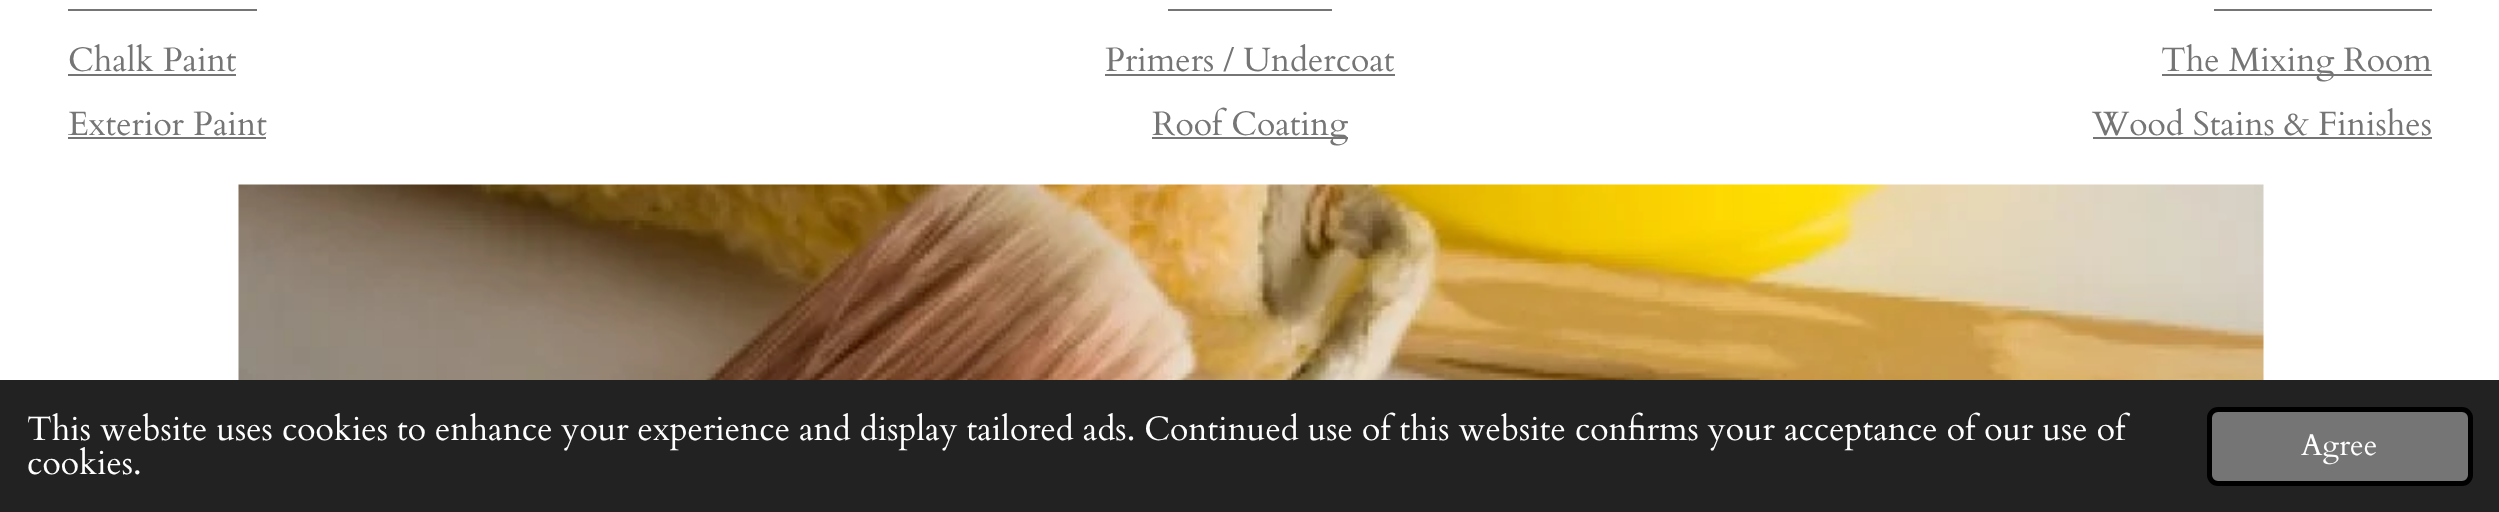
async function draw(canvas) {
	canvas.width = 2499;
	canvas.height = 512;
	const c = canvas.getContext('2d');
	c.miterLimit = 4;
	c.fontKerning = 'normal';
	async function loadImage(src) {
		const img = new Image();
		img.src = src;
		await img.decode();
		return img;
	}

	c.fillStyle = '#fff';
	c.fillRect(0, 0, 2499, 512);
	c.fillStyle = '#757575';
	c.fillRect(68, 9, 189, 2);
	c.font = '33.75px Cardo';
	c.fillText('Chalk Paint', 68, 71);
	c.fillRect(68, 74, 168, 2);
	c.fillText('Exterior Paint', 68, 135);
	c.fillRect(68, 137, 198, 2);
	c.fillRect(1168, 9, 164, 2);
	c.fillText('Primers / Undercoat', 1105, 71);
	c.fillRect(1105, 74, 290, 2);
	c.fillRect(1152, 137, 196, 2);
	c.fillText('Roof Coating', 1152, 135);
	c.fillRect(2214, 9, 218, 2);
	c.fillRect(2162, 74, 270, 2);
	c.fillText('The Mixing Room', 2161, 71);
	c.fillText('Wood Stains & Finishes', 2092, 135);
	c.fillRect(2093, 137, 339, 2);
	c.drawImage(await loadImage('img1.png'), 238, 184, 2026, 196);
	c.fillStyle = '#222';
	c.fillRect(0, 380, 2499, 132);
	c.fillStyle = '#fff';
	c.fillText('This website uses cookies to enhance your experience and display tailored ads. Continued use of this website confirms your acceptance of our use of', 27, 440);
	c.fillText('cookies.', 27, 474);
	c.fillStyle = '#757575';
	c.beginPath();
	c.roundRect(2209.5, 409.5, 261, 74, 8.5);
	c.fill();
	c.strokeStyle = '#000';
	c.lineWidth = 5;
	c.stroke();
	c.font = '30px Cardo';
	c.fillStyle = '#fff';
	c.fillText('Agree', 2301, 455);
}

draw(document.querySelector('canvas'));
